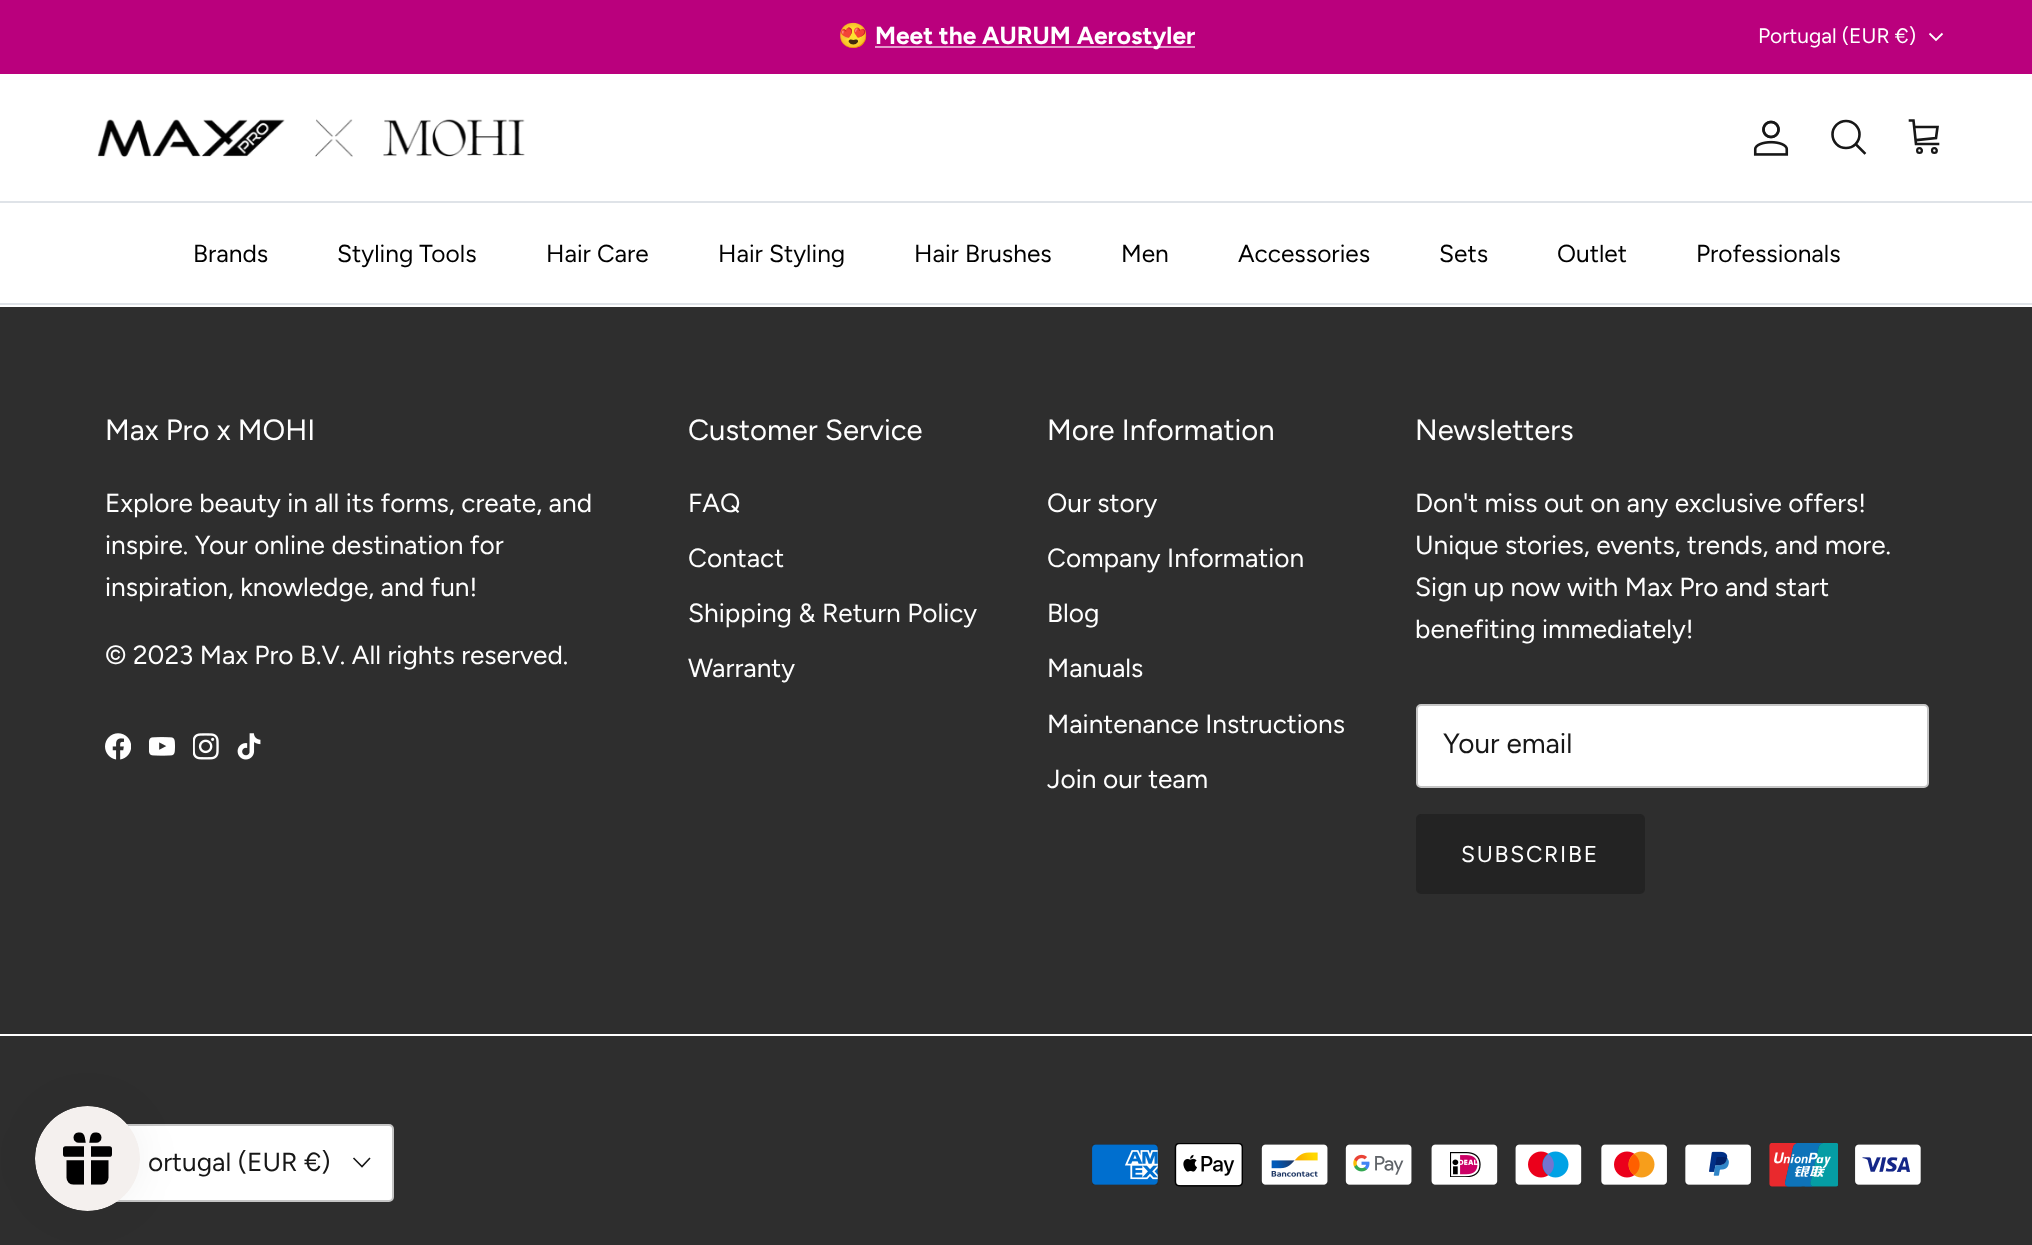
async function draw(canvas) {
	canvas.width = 2032;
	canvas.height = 1245;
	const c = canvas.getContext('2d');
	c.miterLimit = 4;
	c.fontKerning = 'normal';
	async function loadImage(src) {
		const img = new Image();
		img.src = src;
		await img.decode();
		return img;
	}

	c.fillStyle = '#fff';
	c.fillRect(0, 0, 2032, 1245);
	c.fillStyle = '#ba007d';
	c.fillRect(0, 0, 2032, 74);
	c.font = '24.5px Noto Color Emoji';
	c.fillStyle = '#fff';
	c.fillText('😍', 838, 44);
	c.fillStyle = '#e399cb';
	c.fillRect(875, 46, 320, 2);
	c.font = 'bold 24.5px Figtree';
	c.fillStyle = '#fff';
	c.fillText('Meet the AURUM Aerostyler', 875, 44);
	c.font = '21px Figtree';
	c.fillText('Portugal (EUR €)', 1758, 43);
	c.beginPath();
	c.moveTo(1942.5, 33.5);
	c.lineTo(1936, 40);
	c.lineTo(1929.5, 33.5);
	c.strokeStyle = '#fff';
	c.lineWidth = 1.8;
	c.stroke();
	c.fillStyle = '#dfe3e8';
	c.fillRect(0, 201, 2032, 2);
	c.drawImage(await loadImage('img1.png'), 97, 119, 428, 38);
	c.drawImage(await loadImage('img2.png'), 1753, 120, 36, 36);
	c.beginPath();
	c.arc(1846, 134.5, 13.5, 0, 2 * Math.PI);
	c.strokeStyle = '#171717';
	c.lineWidth = 2.6;
	c.stroke();
	c.beginPath();
	c.moveTo(1856.5, 145);
	c.lineTo(1864.5, 153);
	c.lineCap = 'square';
	c.stroke();
	c.beginPath();
	c.moveTo(1910, 120.5);
	c.lineTo(1913.5, 120.5);
	c.lineTo(1916, 144);
	c.lineTo(1938, 144);
	c.moveTo(1915, 127);
	c.lineTo(1937.5, 127);
	c.lineTo(1936, 138);
	c.lineTo(1917.5, 140);
	c.stroke();
	c.beginPath();
	c.arc(1919.5, 150.5, 2.4, 0, 2 * Math.PI);
	c.lineWidth = 2.2;
	c.stroke();
	c.beginPath();
	c.arc(1934.4, 150.5, 2.4, 0, 2 * Math.PI);
	c.stroke();
	c.fillRect(0, 303, 2032, 2);
	c.font = '24.5px Figtree';
	c.fillStyle = '#000';
	for (const [text, x, y] of [
		['Brands', 193, 262],
		['Styling Tools', 337, 262],
		['Hair Care', 546, 262],
		['Hair Styling', 718, 262],
		['Hair Brushes', 914, 262],
		['Men', 1121, 262],
		['Accessories', 1238, 262],
		['Sets', 1439, 262],
		['Outlet', 1557, 262],
		['Professionals', 1696, 262],
	]) {
		c.fillText(text, x, y);
	}
	c.fillStyle = '#2e2e2e';
	c.fillRect(0, 307, 2032, 938);
	c.fillStyle = '#fff';
	c.beginPath();
	c.roundRect(106, 1125, 287, 76, 4);
	c.fill();
	c.strokeStyle = '#c5c5c5';
	c.lineWidth = 2;
	c.stroke();
	c.fillStyle = '#0000000d';
	c.filter = 'blur(22px)';
	c.beginPath();
	c.roundRect(35, 1106, 105, 105, 52.5);
	c.fill();
	c.filter = 'none';
	c.drawImage(await loadImage('img3.png'), 35, 1106, 105, 105);
	c.font = '29.25px Figtree';
	c.fillStyle = '#fff';
	c.fillText('Max Pro x MOHI', 105, 440);
	c.font = '26.25px Figtree';
	for (const [text, x, y] of [
		['Explore beauty in all its forms, create, and', 105, 512],
		['inspire. Your online destination for', 105, 554],
		['inspiration, knowledge, and fun!', 105, 596],
		['© 2023 Max Pro B.V. All rights reserved.', 105, 664],
	]) {
		c.fillText(text, x, y);
	}
	c.drawImage(await loadImage('img4.png'), 105, 733, 26, 27);
	c.drawImage(await loadImage('img5.png'), 149, 737, 26, 19);
	c.drawImage(await loadImage('img6.png'), 193, 733, 26, 27);
	c.drawImage(await loadImage('img7.png'), 237, 733, 24, 27);
	c.font = '29.25px Figtree';
	c.fillText('Customer Service', 688, 440);
	c.font = '26.25px Figtree';
	for (const [text, x, y] of [
		['FAQ', 688, 512],
		['Contact', 688, 567],
		['Shipping & Return Policy', 688, 622],
		['Warranty', 688, 677],
	]) {
		c.fillText(text, x, y);
	}
	c.font = '29.25px Figtree';
	c.fillText('More Information', 1047, 440);
	c.font = '26.25px Figtree';
	for (const [text, x, y] of [
		['Our story', 1047, 512],
		['Company Information', 1047, 567],
		['Blog', 1047, 622],
		['Manuals', 1047, 677],
		['Maintenance Instructions', 1047, 733],
		['Join our team', 1047, 788],
	]) {
		c.fillText(text, x, y);
	}
	c.font = '29.25px Figtree';
	c.fillText('Newsletters', 1415, 440);
	c.font = '26.25px Figtree';
	for (const [text, x, y] of [
		['Don\'t miss out on any exclusive offers!', 1415, 512],
		['Unique stories, events, trends, and more.', 1415, 554],
		['Sign up now with Max Pro and start', 1415, 596],
		['benefiting immediately!', 1415, 638],
	]) {
		c.fillText(text, x, y);
	}
	c.beginPath();
	c.roundRect(1417, 705, 511, 82, 4);
	c.fill();
	c.stroke();
	c.font = '28px Figtree';
	c.fillStyle = '#171717';
	c.fillText('Your email', 1443, 753);
	c.fillStyle = '#232323';
	c.beginPath();
	c.roundRect(1417, 815, 227, 78, 4);
	c.fill();
	c.strokeStyle = '#232323';
	c.stroke();
	c.letterSpacing = '1.75px';
	c.font = '22.75px Figtree';
	c.fillStyle = '#fff';
	c.fillText('SUBSCRIBE', 1461, 862);
	c.fillRect(0, 1034, 2032, 2);
	c.letterSpacing = '0px';
	c.font = '26.25px Figtree';
	c.fillStyle = '#171717';
	c.fillText('ortugal (EUR €)', 148, 1171);
	c.beginPath();
	c.moveTo(370, 1158);
	c.lineTo(362, 1166.5);
	c.lineTo(353.5, 1158);
	c.strokeStyle = '#171717';
	c.lineWidth = 1.6;
	c.lineCap = 'butt';
	c.stroke();
	c.drawImage(await loadImage('img8.png'), 1092, 1144, 66, 41);
	c.drawImage(await loadImage('img9.png'), 1174, 1143, 69, 44);
	c.drawImage(await loadImage('img10.png'), 1261, 1144, 67, 41);
	c.drawImage(await loadImage('img11.png'), 1345, 1144, 67, 41);
	c.drawImage(await loadImage('img12.png'), 1431, 1144, 67, 41);
	c.drawImage(await loadImage('img13.png'), 1515, 1144, 67, 41);
	c.drawImage(await loadImage('img14.png'), 1601, 1144, 66, 41);
	c.drawImage(await loadImage('img15.png'), 1685, 1144, 66, 41);
	c.drawImage(await loadImage('img16.png'), 1769, 1143, 69, 44);
	c.drawImage(await loadImage('img17.png'), 1855, 1144, 66, 41);
}

draw(document.querySelector('canvas'));
